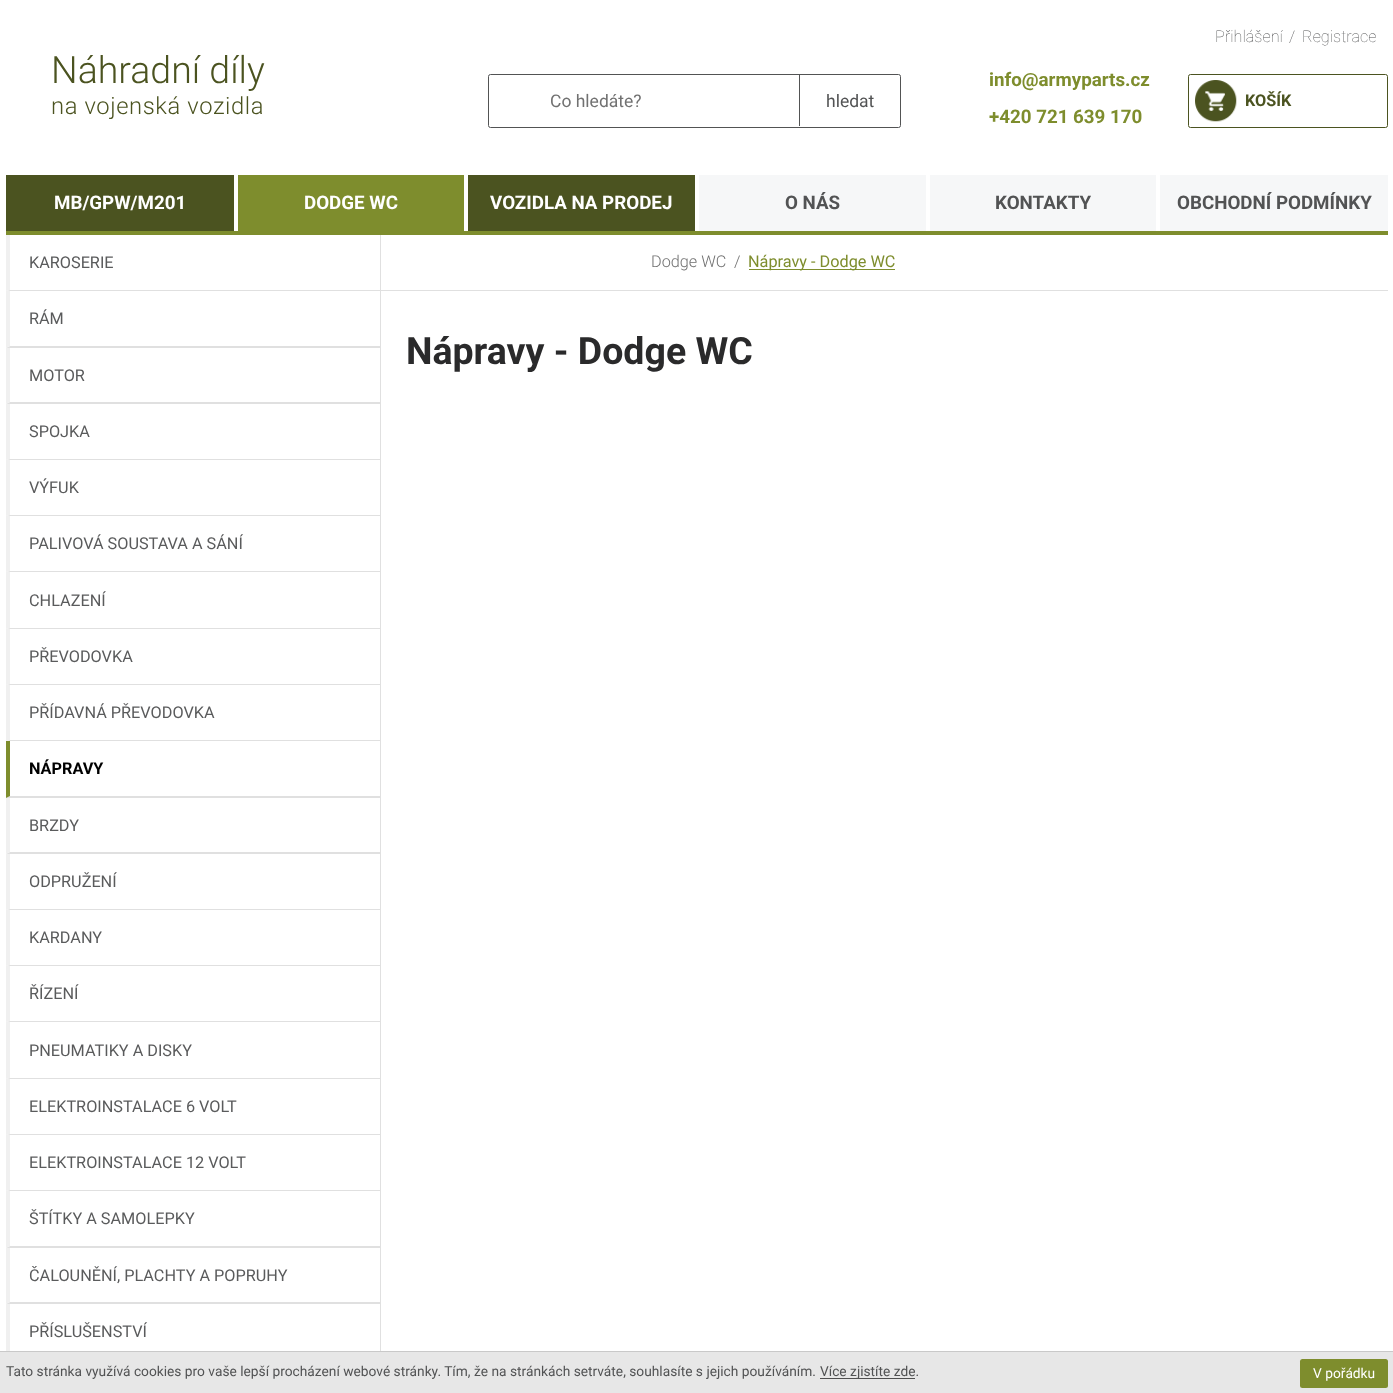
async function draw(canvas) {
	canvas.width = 1393;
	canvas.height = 1393;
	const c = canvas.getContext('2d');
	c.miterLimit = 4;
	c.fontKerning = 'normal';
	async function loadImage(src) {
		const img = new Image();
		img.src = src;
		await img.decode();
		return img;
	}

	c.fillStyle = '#fff';
	c.fillRect(0, 0, 1393, 1393);
	c.font = '300 37.5px Roboto';
	c.fillStyle = '#4b5320';
	c.fillText('Náhradní díly', 51, 83);
	c.letterSpacing = '0.6px';
	c.font = '300 23.75px Roboto';
	c.fillText('na vojenská vozidla', 51, 114);
	c.beginPath();
	c.roundRect(488.5, 74.5, 412, 53, 2);
	c.strokeStyle = '#525354';
	c.stroke();
	c.letterSpacing = '0px';
	c.font = '17.5px Roboto';
	c.fillStyle = '#717171';
	c.fillText('Co hledáte?', 550, 107);
	c.fillStyle = '#fff';
	c.fillRect(898, 75, 1, 1);
	c.fillStyle = '#525354';
	c.fillRect(799, 75, 1, 51);
	c.fillText('hledat', 826, 107);
	c.font = 'bold 18.75px Roboto';
	c.fillStyle = '#7e8d2d';
	c.fillText('info@armyparts.cz', 989, 86);
	c.fillText('+420 721 639 170', 989, 123);
	c.font = '100 16.25px Roboto';
	c.fillStyle = '#525354';
	for (const [text, x, y] of [
		['Přihlášení', 1215, 42],
		['/', 1289, 42],
		['Registrace', 1302, 42],
	]) {
		c.fillText(text, x, y);
	}
	c.drawImage(await loadImage('img1.png'), 1195, 80, 42, 42);
	c.beginPath();
	c.roundRect(1188.5, 74.5, 199, 53, 2);
	c.strokeStyle = '#4b5320';
	c.stroke();
	c.font = 'bold 16.25px Roboto';
	c.fillStyle = '#4b5320';
	c.fillText('KOŠÍK', 1245, 106);
	c.fillStyle = '#7e8d2d';
	c.fillRect(6, 231, 1382, 4);
	c.fillStyle = '#4b5320';
	c.fillRect(6, 175, 228, 56);
	c.font = 'bold 18.75px Roboto';
	c.fillStyle = '#fff';
	c.fillText('MB/GPW/M201', 54, 209);
	c.fillStyle = '#7e8d2d';
	c.fillRect(238, 175, 226, 56);
	c.fillStyle = '#fff';
	c.fillText('DODGE WC', 304, 209);
	c.fillStyle = '#4b5320';
	c.fillRect(468, 175, 227, 56);
	c.fillStyle = '#fff';
	c.fillText('VOZIDLA NA PRODEJ', 490, 209);
	c.fillStyle = '#f6f7f8';
	c.fillRect(699, 175, 227, 56);
	c.fillStyle = '#525354';
	c.fillText('O NÁS', 785, 209);
	c.fillStyle = '#f6f7f8';
	c.fillRect(930, 175, 226, 56);
	c.fillStyle = '#525354';
	c.fillText('KONTAKTY', 995, 209);
	c.fillStyle = '#f6f7f8';
	c.fillRect(1160, 175, 228, 56);
	c.fillStyle = '#525354';
	c.fillText('OBCHODNÍ PODMÍNKY', 1177, 209);
	c.fillStyle = '#e0e0e0';
	c.fillRect(380, 235, 1, 1116);
	c.beginPath();
	c.moveTo(381, 291);
	c.lineTo(6, 291);
	c.lineTo(10, 290);
	c.lineTo(380, 290);
	c.closePath();
	c.fill();
	c.fillStyle = '#f0f0f0';
	c.beginPath();
	c.moveTo(6, 291);
	c.lineTo(6, 235);
	c.lineTo(10, 235);
	c.lineTo(10, 290);
	c.closePath();
	c.fill();
	c.font = '16.25px Roboto';
	c.fillStyle = '#5a5b5c';
	c.fillText('KAROSERIE', 29, 268);
	c.fillStyle = '#e0e0e0';
	c.beginPath();
	c.moveTo(381, 348);
	c.lineTo(6, 348);
	c.lineTo(10, 346);
	c.lineTo(380, 346);
	c.closePath();
	c.fill();
	c.fillStyle = '#f0f0f0';
	c.beginPath();
	c.moveTo(6, 348);
	c.lineTo(6, 291);
	c.lineTo(10, 291);
	c.lineTo(10, 346);
	c.closePath();
	c.fill();
	c.fillStyle = '#5a5b5c';
	c.fillText('RÁM', 29, 324);
	c.fillStyle = '#e0e0e0';
	c.beginPath();
	c.moveTo(381, 404);
	c.lineTo(6, 404);
	c.lineTo(10, 402);
	c.lineTo(380, 402);
	c.closePath();
	c.fill();
	c.fillStyle = '#f0f0f0';
	c.beginPath();
	c.moveTo(6, 404);
	c.lineTo(6, 348);
	c.lineTo(10, 348);
	c.lineTo(10, 402);
	c.closePath();
	c.fill();
	c.fillStyle = '#5a5b5c';
	c.fillText('MOTOR', 29, 381);
	c.fillStyle = '#e0e0e0';
	c.beginPath();
	c.moveTo(381, 460);
	c.lineTo(6, 460);
	c.lineTo(10, 459);
	c.lineTo(380, 459);
	c.closePath();
	c.fill();
	c.fillStyle = '#f0f0f0';
	c.beginPath();
	c.moveTo(6, 460);
	c.lineTo(6, 404);
	c.lineTo(10, 404);
	c.lineTo(10, 459);
	c.closePath();
	c.fill();
	c.fillStyle = '#5a5b5c';
	c.fillText('SPOJKA', 29, 437);
	c.fillStyle = '#e0e0e0';
	c.beginPath();
	c.moveTo(381, 516);
	c.lineTo(6, 516);
	c.lineTo(10, 515);
	c.lineTo(380, 515);
	c.closePath();
	c.fill();
	c.fillStyle = '#f0f0f0';
	c.beginPath();
	c.moveTo(6, 516);
	c.lineTo(6, 460);
	c.lineTo(10, 460);
	c.lineTo(10, 515);
	c.closePath();
	c.fill();
	c.fillStyle = '#5a5b5c';
	c.fillText('VÝFUK', 29, 493);
	c.fillStyle = '#e0e0e0';
	c.beginPath();
	c.moveTo(381, 572);
	c.lineTo(6, 572);
	c.lineTo(10, 571);
	c.lineTo(380, 571);
	c.closePath();
	c.fill();
	c.fillStyle = '#f0f0f0';
	c.beginPath();
	c.moveTo(6, 572);
	c.lineTo(6, 516);
	c.lineTo(10, 516);
	c.lineTo(10, 571);
	c.closePath();
	c.fill();
	c.fillStyle = '#5a5b5c';
	c.fillText('PALIVOVÁ SOUSTAVA A SÁNÍ', 29, 549);
	c.fillStyle = '#e0e0e0';
	c.beginPath();
	c.moveTo(381, 629);
	c.lineTo(6, 629);
	c.lineTo(10, 628);
	c.lineTo(380, 628);
	c.closePath();
	c.fill();
	c.fillStyle = '#f0f0f0';
	c.beginPath();
	c.moveTo(6, 629);
	c.lineTo(6, 572);
	c.lineTo(10, 572);
	c.lineTo(10, 628);
	c.closePath();
	c.fill();
	c.fillStyle = '#5a5b5c';
	c.fillText('CHLAZENÍ', 29, 606);
	c.fillStyle = '#e0e0e0';
	c.beginPath();
	c.moveTo(381, 685);
	c.lineTo(6, 685);
	c.lineTo(10, 684);
	c.lineTo(380, 684);
	c.closePath();
	c.fill();
	c.fillStyle = '#f0f0f0';
	c.beginPath();
	c.moveTo(6, 685);
	c.lineTo(6, 629);
	c.lineTo(10, 629);
	c.lineTo(10, 684);
	c.closePath();
	c.fill();
	c.fillStyle = '#5a5b5c';
	c.fillText('PŘEVODOVKA', 29, 662);
	c.fillStyle = '#e0e0e0';
	c.beginPath();
	c.moveTo(381, 741);
	c.lineTo(6, 741);
	c.lineTo(10, 740);
	c.lineTo(380, 740);
	c.closePath();
	c.fill();
	c.fillStyle = '#f0f0f0';
	c.beginPath();
	c.moveTo(6, 741);
	c.lineTo(6, 685);
	c.lineTo(10, 685);
	c.lineTo(10, 740);
	c.closePath();
	c.fill();
	c.fillStyle = '#5a5b5c';
	c.fillText('PŘÍDAVNÁ PŘEVODOVKA', 29, 718);
	c.fillStyle = '#e0e0e0';
	c.beginPath();
	c.moveTo(381, 798);
	c.lineTo(6, 798);
	c.lineTo(10, 796);
	c.lineTo(380, 796);
	c.closePath();
	c.fill();
	c.fillStyle = '#7e8d2d';
	c.beginPath();
	c.moveTo(6, 798);
	c.lineTo(6, 741);
	c.lineTo(10, 741);
	c.lineTo(10, 796);
	c.closePath();
	c.fill();
	c.font = 'bold 16.25px Roboto';
	c.fillStyle = '#000';
	c.fillText('NÁPRAVY', 29, 774);
	c.fillStyle = '#e0e0e0';
	c.beginPath();
	c.moveTo(381, 854);
	c.lineTo(6, 854);
	c.lineTo(10, 852);
	c.lineTo(380, 852);
	c.closePath();
	c.fill();
	c.fillStyle = '#f0f0f0';
	c.beginPath();
	c.moveTo(6, 854);
	c.lineTo(6, 798);
	c.lineTo(10, 798);
	c.lineTo(10, 852);
	c.closePath();
	c.fill();
	c.font = '16.25px Roboto';
	c.fillStyle = '#5a5b5c';
	c.fillText('BRZDY', 29, 831);
	c.fillStyle = '#e0e0e0';
	c.beginPath();
	c.moveTo(381, 910);
	c.lineTo(6, 910);
	c.lineTo(10, 909);
	c.lineTo(380, 909);
	c.closePath();
	c.fill();
	c.fillStyle = '#f0f0f0';
	c.beginPath();
	c.moveTo(6, 910);
	c.lineTo(6, 854);
	c.lineTo(10, 854);
	c.lineTo(10, 909);
	c.closePath();
	c.fill();
	c.fillStyle = '#5a5b5c';
	c.fillText('ODPRUŽENÍ', 29, 887);
	c.fillStyle = '#e0e0e0';
	c.beginPath();
	c.moveTo(381, 966);
	c.lineTo(6, 966);
	c.lineTo(10, 965);
	c.lineTo(380, 965);
	c.closePath();
	c.fill();
	c.fillStyle = '#f0f0f0';
	c.beginPath();
	c.moveTo(6, 966);
	c.lineTo(6, 910);
	c.lineTo(10, 910);
	c.lineTo(10, 965);
	c.closePath();
	c.fill();
	c.fillStyle = '#5a5b5c';
	c.fillText('KARDANY', 29, 943);
	c.fillStyle = '#e0e0e0';
	c.beginPath();
	c.moveTo(381, 1022);
	c.lineTo(6, 1022);
	c.lineTo(10, 1021);
	c.lineTo(380, 1021);
	c.closePath();
	c.fill();
	c.fillStyle = '#f0f0f0';
	c.beginPath();
	c.moveTo(6, 1022);
	c.lineTo(6, 966);
	c.lineTo(10, 966);
	c.lineTo(10, 1021);
	c.closePath();
	c.fill();
	c.fillStyle = '#5a5b5c';
	c.fillText('ŘÍZENÍ', 29, 999);
	c.fillStyle = '#e0e0e0';
	c.beginPath();
	c.moveTo(381, 1079);
	c.lineTo(6, 1079);
	c.lineTo(10, 1078);
	c.lineTo(380, 1078);
	c.closePath();
	c.fill();
	c.fillStyle = '#f0f0f0';
	c.beginPath();
	c.moveTo(6, 1079);
	c.lineTo(6, 1022);
	c.lineTo(10, 1022);
	c.lineTo(10, 1078);
	c.closePath();
	c.fill();
	c.fillStyle = '#5a5b5c';
	c.fillText('PNEUMATIKY A DISKY', 29, 1056);
	c.fillStyle = '#e0e0e0';
	c.beginPath();
	c.moveTo(381, 1135);
	c.lineTo(6, 1135);
	c.lineTo(10, 1134);
	c.lineTo(380, 1134);
	c.closePath();
	c.fill();
	c.fillStyle = '#f0f0f0';
	c.beginPath();
	c.moveTo(6, 1135);
	c.lineTo(6, 1079);
	c.lineTo(10, 1079);
	c.lineTo(10, 1134);
	c.closePath();
	c.fill();
	c.fillStyle = '#5a5b5c';
	c.fillText('ELEKTROINSTALACE 6 VOLT', 29, 1112);
	c.fillStyle = '#e0e0e0';
	c.beginPath();
	c.moveTo(381, 1191);
	c.lineTo(6, 1191);
	c.lineTo(10, 1190);
	c.lineTo(380, 1190);
	c.closePath();
	c.fill();
	c.fillStyle = '#f0f0f0';
	c.beginPath();
	c.moveTo(6, 1191);
	c.lineTo(6, 1135);
	c.lineTo(10, 1135);
	c.lineTo(10, 1190);
	c.closePath();
	c.fill();
	c.fillStyle = '#5a5b5c';
	c.fillText('ELEKTROINSTALACE 12 VOLT', 29, 1168);
	c.fillStyle = '#e0e0e0';
	c.beginPath();
	c.moveTo(381, 1248);
	c.lineTo(6, 1248);
	c.lineTo(10, 1246);
	c.lineTo(380, 1246);
	c.closePath();
	c.fill();
	c.fillStyle = '#f0f0f0';
	c.beginPath();
	c.moveTo(6, 1248);
	c.lineTo(6, 1191);
	c.lineTo(10, 1191);
	c.lineTo(10, 1246);
	c.closePath();
	c.fill();
	c.fillStyle = '#5a5b5c';
	c.fillText('ŠTÍTKY A SAMOLEPKY', 29, 1224);
	c.fillStyle = '#e0e0e0';
	c.beginPath();
	c.moveTo(381, 1304);
	c.lineTo(6, 1304);
	c.lineTo(10, 1302);
	c.lineTo(380, 1302);
	c.closePath();
	c.fill();
	c.fillStyle = '#f0f0f0';
	c.beginPath();
	c.moveTo(6, 1304);
	c.lineTo(6, 1248);
	c.lineTo(10, 1248);
	c.lineTo(10, 1302);
	c.closePath();
	c.fill();
	c.fillStyle = '#5a5b5c';
	c.fillText('ČALOUNĚNÍ, PLACHTY A POPRUHY', 29, 1281);
	c.fillStyle = '#f0f0f0';
	c.beginPath();
	c.moveTo(6, 1360);
	c.lineTo(6, 1304);
	c.lineTo(10, 1304);
	c.lineTo(10, 1359);
	c.closePath();
	c.fill();
	c.fillStyle = '#5a5b5c';
	c.fillText('PŘÍSLUŠENSTVÍ', 29, 1337);
	c.fillStyle = '#e0e0e0';
	c.fillRect(381, 290, 1007, 1);
	c.font = '300 16.25px Roboto';
	c.fillStyle = '#717171';
	c.fillText('Dodge WC', 651, 267);
	c.fillText('/', 734, 267);
	c.fillStyle = '#7e8d2d';
	c.fillRect(749, 269, 146, 1);
	c.font = '16.25px Roboto';
	c.fillText('Nápravy - Dodge WC', 748, 267);
	c.font = 'bold 37.5px Roboto';
	c.fillStyle = '#2a2a2b';
	c.fillText('Nápravy - Dodge WC', 406, 364);
	c.fillStyle = '#e7e7e7';
	c.fillRect(0, 1352, 1393, 41);
	c.fillStyle = '#c9c9c9';
	c.fillRect(0, 1351, 1393, 1);
	c.font = '13.75px Roboto';
	c.fillStyle = '#525354';
	c.fillText('Tato stránka využívá cookies pro vaše lepší procházení webové stránky. Tím, že na stránkách setrváte, souhlasíte s jejich používáním.', 6, 1376);
	c.fillStyle = '#4f4f4f';
	c.fillRect(820, 1378, 95, 1);
	c.fillStyle = '#525354';
	c.fillText('Více zjistíte zde.', 820, 1376);
	c.fillStyle = '#7e8d2d';
	c.beginPath();
	c.roundRect(1300, 1359, 88, 29, 2.5);
	c.fill();
	c.fillStyle = '#fff';
	c.fillText('V pořádku', 1313, 1378);
}

draw(document.querySelector('canvas'));
